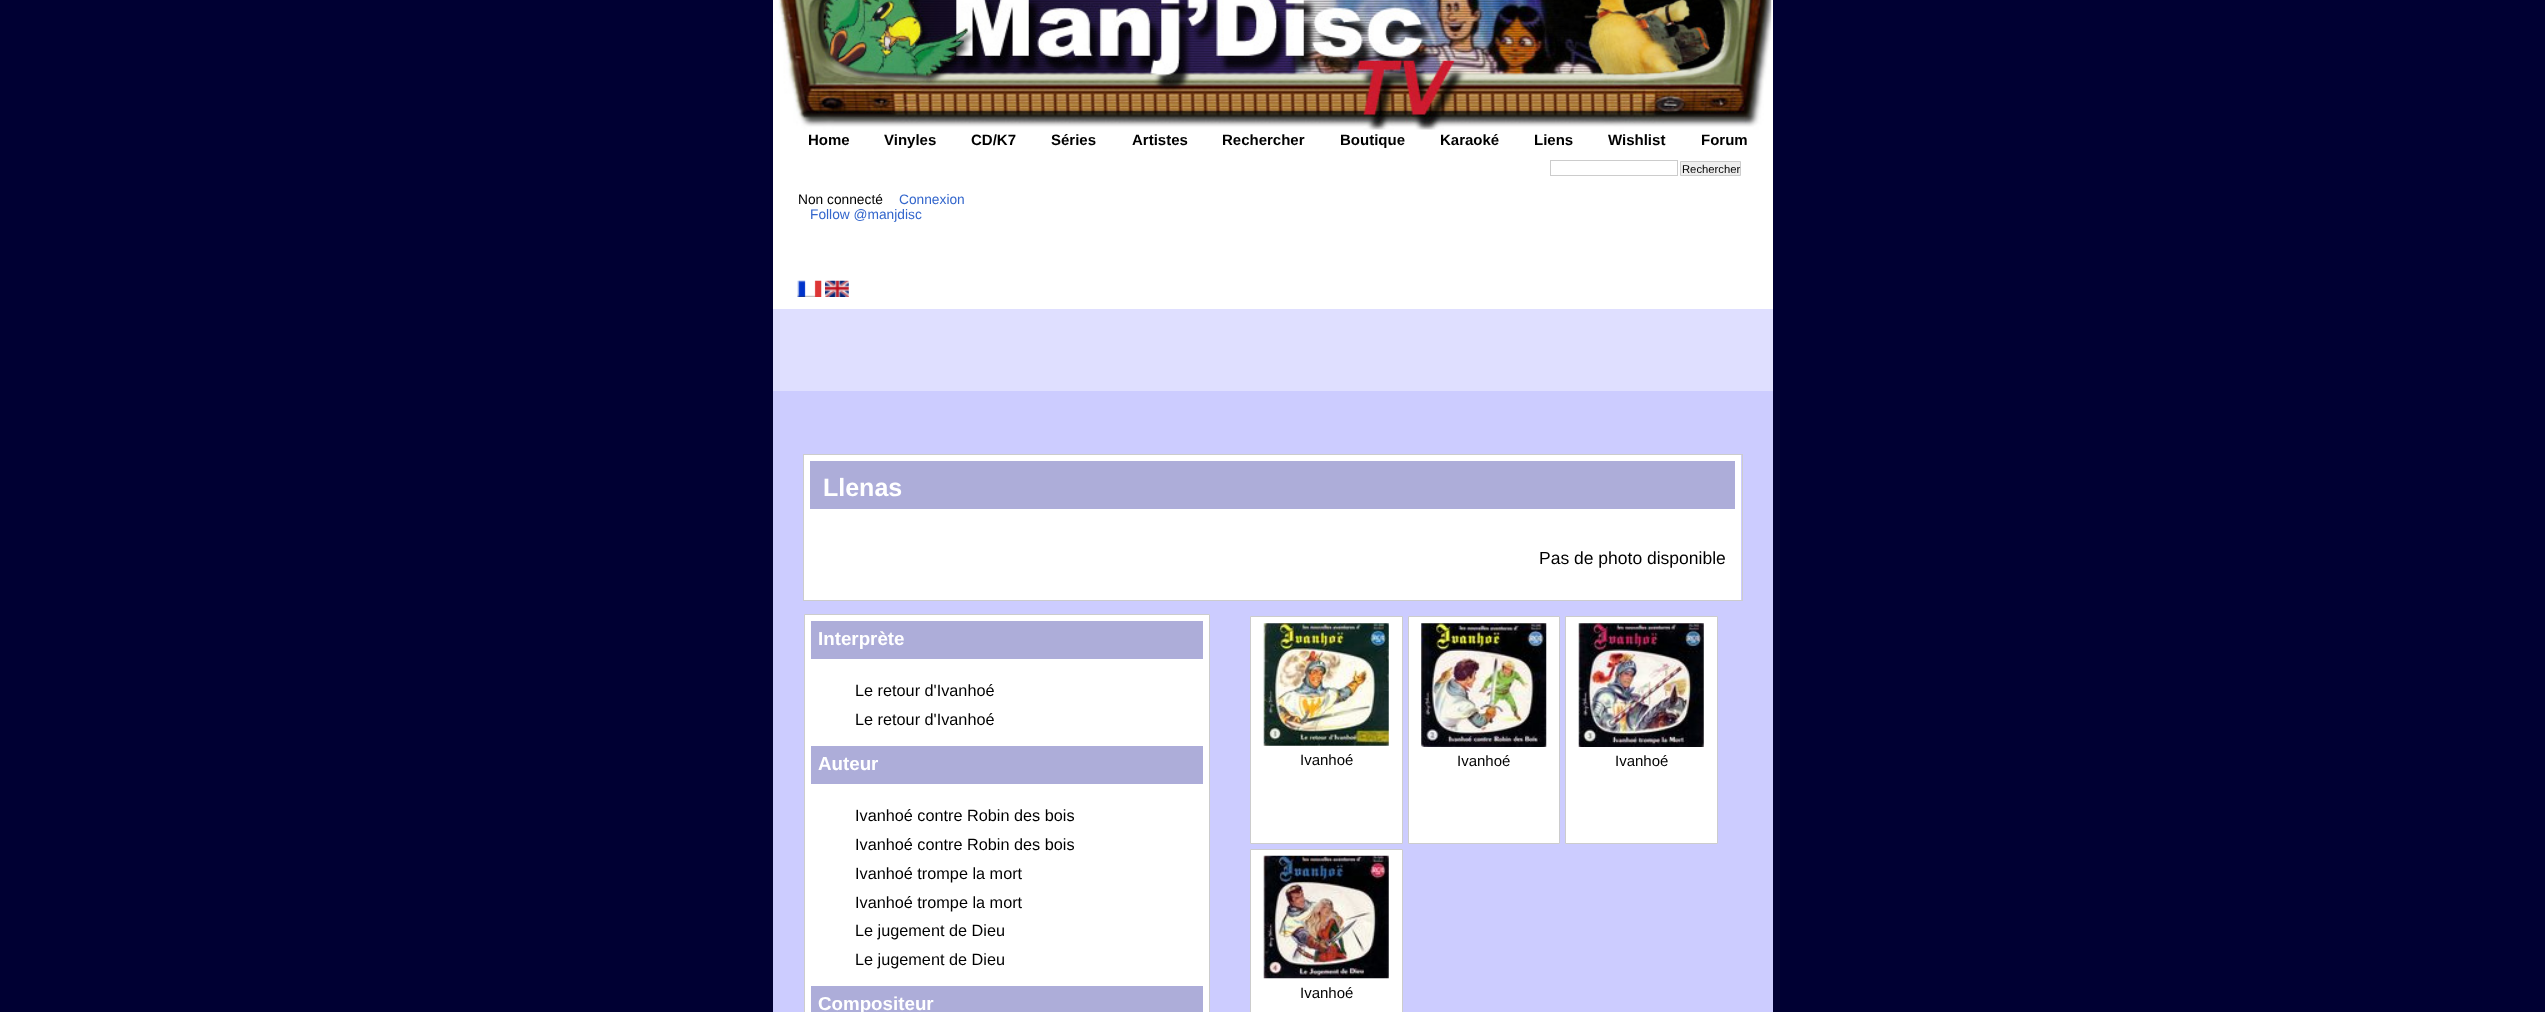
async function draw(canvas) {
	canvas.width = 2545;
	canvas.height = 1012;
	const c = canvas.getContext('2d');
	c.miterLimit = 4;
	c.fontKerning = 'normal';
	async function loadImage(src) {
		const img = new Image();
		img.src = src;
		await img.decode();
		return img;
	}

	c.fillStyle = '#003';
	c.fillRect(0, 0, 2545, 1012);
	c.fillStyle = '#dfdfff';
	c.fillRect(773, 309, 1000, 82);
	c.fillStyle = '#fff';
	c.fillRect(773, 0, 1000, 309);
	c.drawImage(await loadImage('img1.png'), 774, 0, 998, 130);
	c.font = 'bold 15px Liberation Sans';
	c.fillStyle = '#000';
	for (const [text, x, y] of [
		['Home', 808, 145],
		['Vinyles', 884, 145],
		['CD/K7', 971, 145],
		['Séries', 1051, 145],
		['Artistes', 1132, 145],
		['Rechercher', 1222, 145],
		['Boutique', 1340, 145],
		['Karaoké', 1440, 145],
		['Liens', 1534, 145],
		['Wishlist', 1608, 145],
		['Forum', 1701, 145],
	]) {
		c.fillText(text, x, y);
	}
	c.strokeStyle = '#ccc';
	c.strokeRect(1550.5, 160.5, 127, 15);
	c.fillStyle = '#eee';
	c.beginPath();
	c.rect(1680.5, 161.5, 60, 14);
	c.fill();
	c.stroke();
	c.font = '11.25px Liberation Sans';
	c.fillStyle = '#000';
	c.fillText('Rechercher', 1682, 173);
	c.font = '13.75px Liberation Sans';
	c.fillText('Non connecté', 798, 204);
	c.fillStyle = '#36c';
	c.fillText('Connexion', 899, 204);
	c.fillText('Follow @manjdisc', 810, 219);
	c.drawImage(await loadImage('img2.png'), 797, 280, 25, 17);
	c.drawImage(await loadImage('img3.png'), 825, 280, 24, 17);
	c.fillStyle = '#ccf';
	c.fillRect(773, 391, 1000, 621);
	c.strokeRect(803.5, 454.5, 939, 146);
	c.fillStyle = '#adadd9';
	c.beginPath();
	c.rect(807, 458, 931, 54);
	c.fill();
	c.strokeStyle = '#fff';
	c.lineWidth = 6;
	c.stroke();
	c.font = 'bold 25px Liberation Sans';
	c.fillStyle = '#fff';
	c.fillText('Llenas', 823, 496);
	c.fillRect(804, 515, 937, 85);
	c.font = '17.5px Liberation Sans';
	c.fillStyle = '#000';
	c.fillText('Pas de photo disponible', 1539, 564);
	c.fillStyle = '#fff';
	c.beginPath();
	c.rect(804.5, 614.5, 405, 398);
	c.fill();
	c.strokeStyle = '#ccc';
	c.lineWidth = 1;
	c.stroke();
	c.fillStyle = '#adadd9';
	c.fillRect(811, 621, 392, 38);
	c.font = 'bold 18.75px Liberation Sans';
	c.fillStyle = '#fff';
	c.fillText('Interprète', 818, 645);
	c.font = '16.25px Liberation Sans';
	c.fillStyle = '#000';
	c.fillText('Le retour d\'Ivanhoé', 855, 696);
	c.fillText('Le retour d\'Ivanhoé', 855, 725);
	c.fillStyle = '#adadd9';
	c.fillRect(811, 746, 392, 38);
	c.font = 'bold 18.75px Liberation Sans';
	c.fillStyle = '#fff';
	c.fillText('Auteur', 818, 770);
	c.font = '16.25px Liberation Sans';
	c.fillStyle = '#000';
	for (const [text, x, y] of [
		['Ivanhoé contre Robin des bois', 855, 821],
		['Ivanhoé contre Robin des bois', 855, 850],
		['Ivanhoé trompe la mort', 855, 879],
		['Ivanhoé trompe la mort', 855, 908],
		['Le jugement de Dieu', 855, 936],
		['Le jugement de Dieu', 855, 965],
	]) {
		c.fillText(text, x, y);
	}
	c.fillStyle = '#adadd9';
	c.fillRect(811, 986, 392, 26);
	c.font = 'bold 18.75px Liberation Sans';
	c.fillStyle = '#fff';
	c.fillText('Compositeur', 818, 1010);
	c.beginPath();
	c.rect(1250.5, 616.5, 152, 227);
	c.fill();
	c.stroke();
	c.drawImage(await loadImage('img4.png'), 1263, 623, 126, 123);
	c.font = '15px Liberation Sans';
	c.fillStyle = '#000';
	c.fillText('Ivanhoé', 1300, 765);
	c.fillStyle = '#fff';
	c.beginPath();
	c.rect(1408.5, 616.5, 151, 227);
	c.fill();
	c.stroke();
	c.drawImage(await loadImage('img5.png'), 1421, 623, 126, 124);
	c.fillStyle = '#000';
	c.fillText('Ivanhoé', 1457, 766);
	c.fillStyle = '#fff';
	c.beginPath();
	c.rect(1565.5, 616.5, 152, 227);
	c.fill();
	c.stroke();
	c.drawImage(await loadImage('img6.png'), 1578, 623, 126, 124);
	c.fillStyle = '#000';
	c.fillText('Ivanhoé', 1615, 766);
	c.fillStyle = '#fff';
	c.beginPath();
	c.rect(1250.5, 849.5, 152, 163);
	c.fill();
	c.stroke();
	c.drawImage(await loadImage('img7.png'), 1263, 855, 126, 124);
	c.fillStyle = '#000';
	c.fillText('Ivanhoé', 1300, 998);
}

draw(document.querySelector('canvas'));
